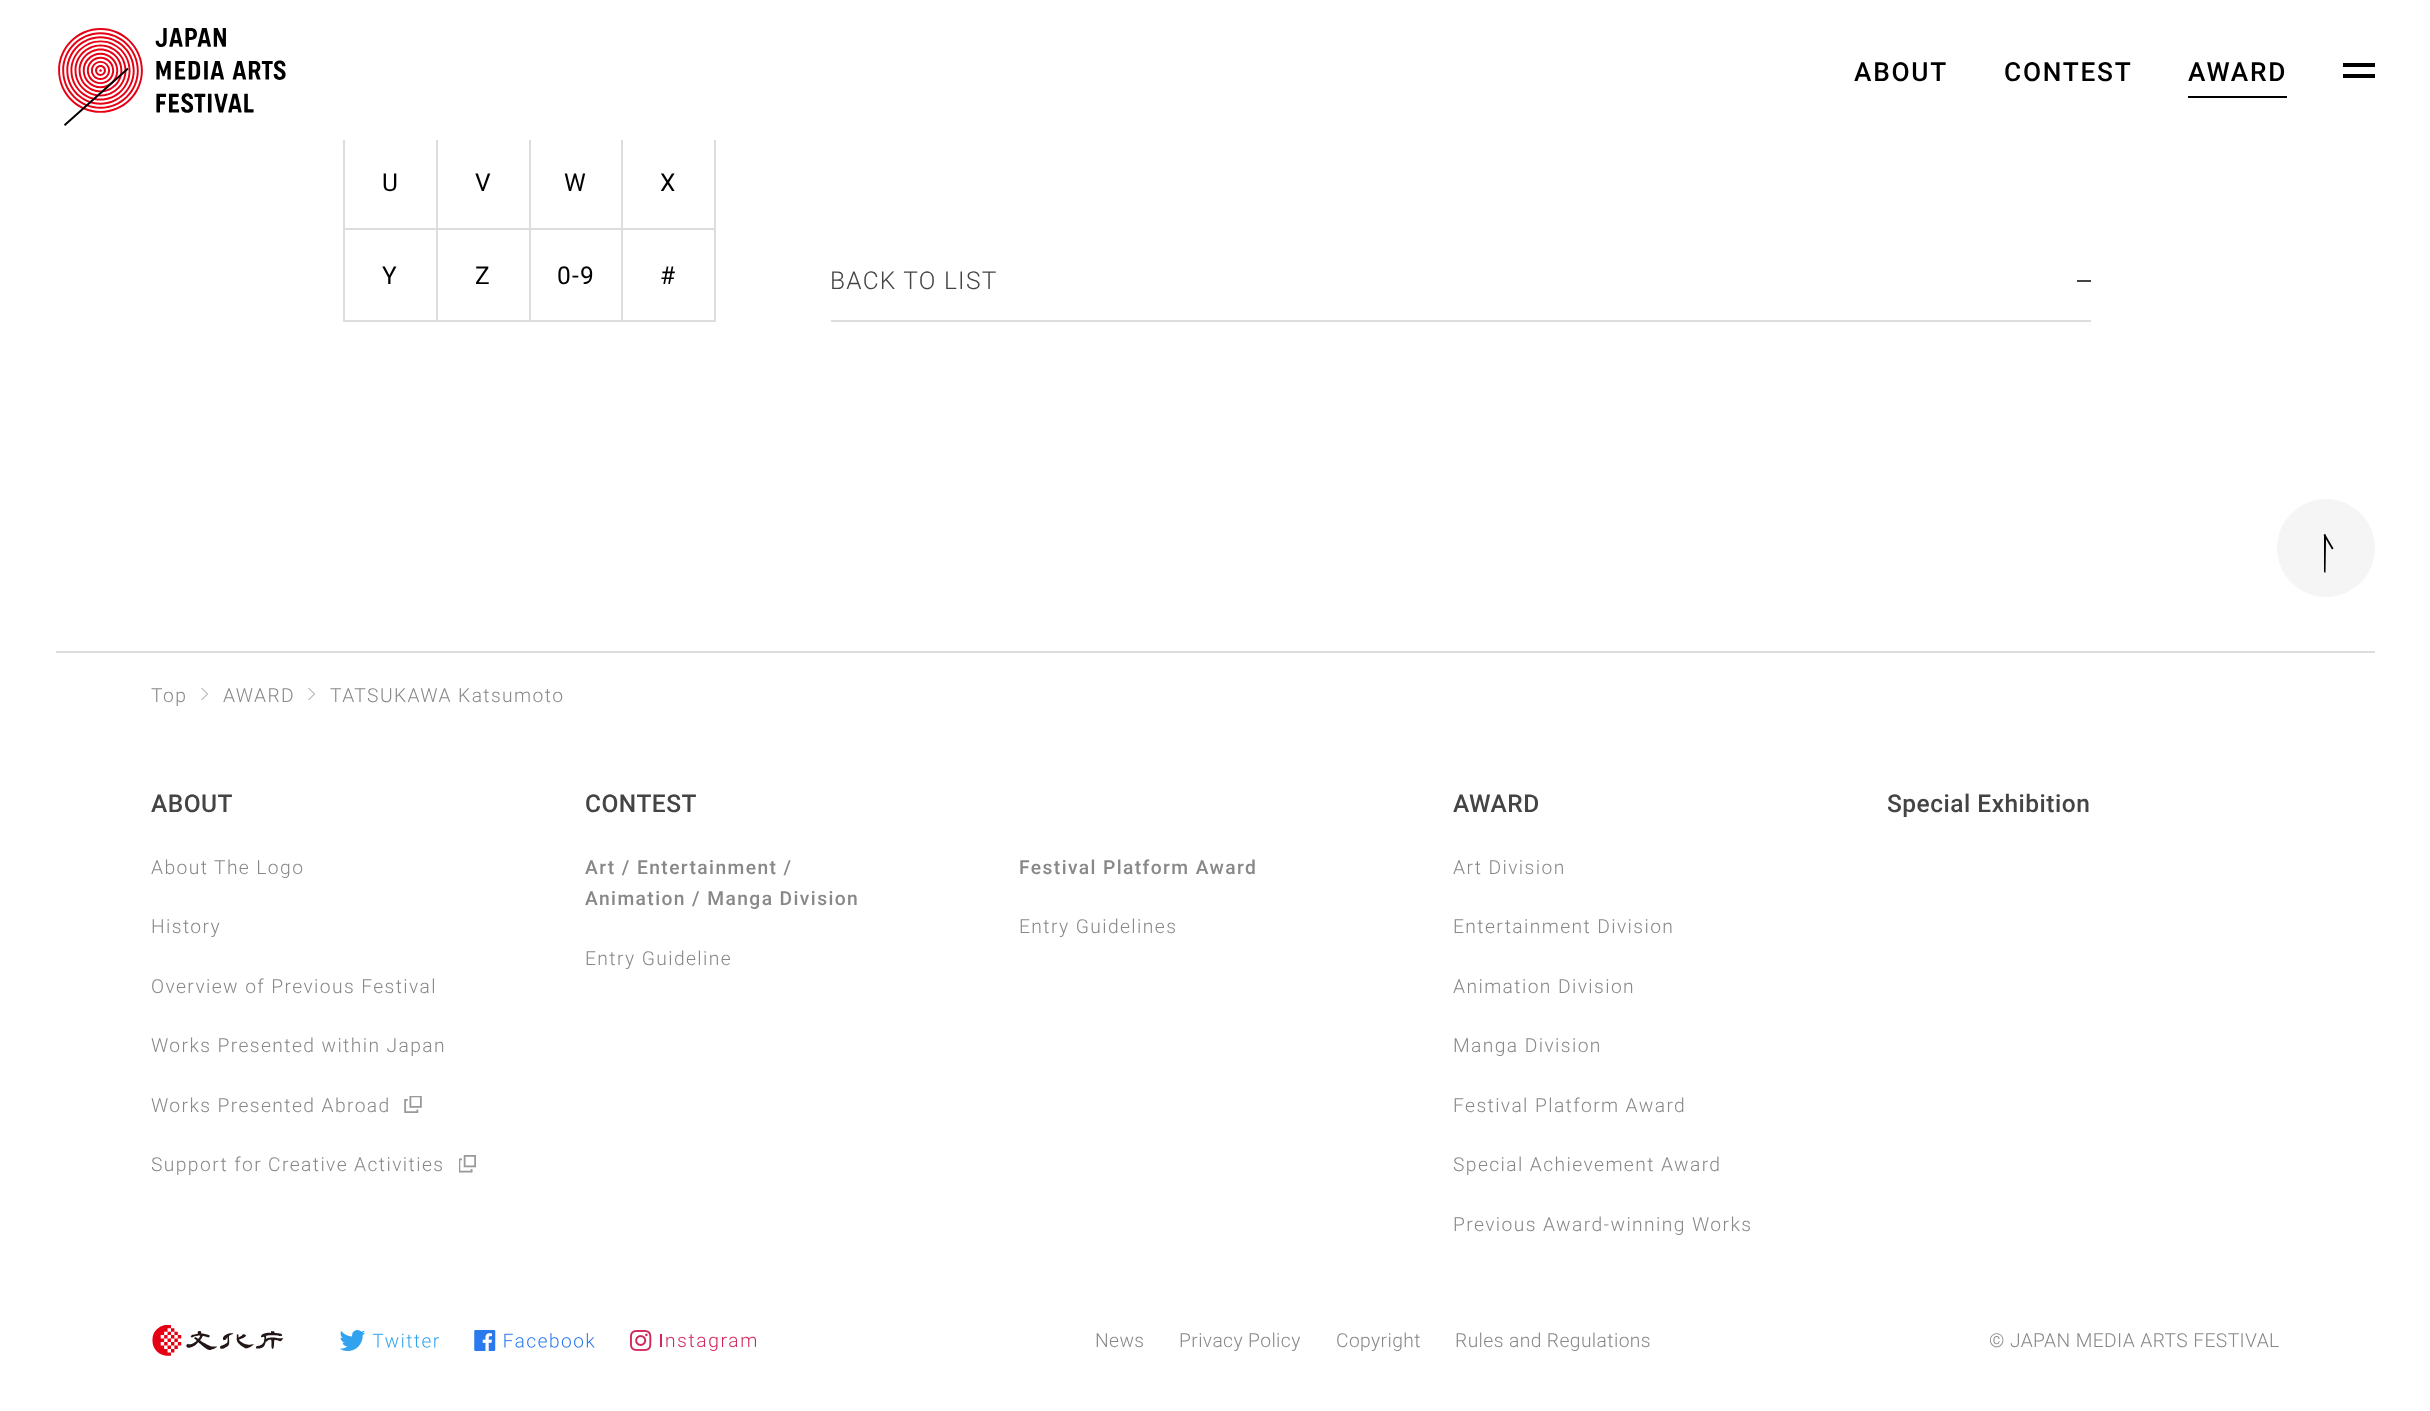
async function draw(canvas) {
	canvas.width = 2430;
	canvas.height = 1411;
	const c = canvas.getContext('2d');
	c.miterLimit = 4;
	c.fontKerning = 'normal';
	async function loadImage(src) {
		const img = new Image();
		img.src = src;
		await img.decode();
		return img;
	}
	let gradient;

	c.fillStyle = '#fff';
	c.fillRect(0, 0, 2430, 1411);
	for (const [x, y, w, h, color] of [
		[436, 137, 2, 92, '#ddd'],
		[529, 137, 2, 92, '#ddd'],
		[621, 137, 2, 92, '#ddd'],
		[714, 137, 2, 92, '#ddd'],
		[436, 137, 280, 3, '#fff'],
	]) {
		c.fillStyle = color;
		c.fillRect(x, y, w, h);
	}
	c.drawImage(await loadImage('img1.png'), 58, 28, 228, 98);
	c.letterSpacing = '1.75px';
	c.font = '500 26.25px Roboto';
	c.fillStyle = '#000';
	for (const [text, x, y] of [
		['ABOUT', 1854, 81],
		['CONTEST', 2004, 81],
		['AWARD', 2188, 81],
	]) {
		c.fillText(text, x, y);
	}
	for (const [x, y, w, h, color] of [
		[2188, 96, 99, 2, '#000'],
		[2343, 63, 32, 4, '#000'],
		[2343, 74, 32, 4, '#000'],
		[343, 140, 2, 182, '#ddd'],
		[345, 228, 93, 2, '#ddd'],
	]) {
		c.fillStyle = color;
		c.fillRect(x, y, w, h);
	}
	c.letterSpacing = '1.25px';
	c.font = '24.5px Roboto';
	c.fillStyle = '#000';
	c.fillText('U', 382, 191);
	c.fillStyle = '#ddd';
	c.fillRect(438, 228, 92, 2);
	c.fillStyle = '#000';
	c.fillText('V', 475, 191);
	c.fillStyle = '#ddd';
	c.fillRect(530, 228, 93, 2);
	c.fillStyle = '#000';
	c.fillText('W', 564, 191);
	c.fillStyle = '#ddd';
	c.fillRect(623, 228, 93, 2);
	c.fillStyle = '#000';
	c.fillText('X', 660, 191);
	c.fillStyle = '#ddd';
	c.fillRect(436, 229, 2, 93);
	c.fillRect(345, 320, 93, 2);
	c.fillStyle = '#000';
	c.fillText('Y', 382, 284);
	c.fillStyle = '#ddd';
	c.fillRect(529, 229, 2, 93);
	c.fillRect(438, 320, 92, 2);
	c.fillStyle = '#000';
	c.fillText('Z', 475, 284);
	c.fillStyle = '#ddd';
	c.fillRect(621, 229, 2, 93);
	c.fillRect(530, 320, 93, 2);
	c.fillStyle = '#000';
	c.fillText('0-9', 557, 284);
	c.fillStyle = '#ddd';
	c.fillRect(714, 229, 2, 93);
	c.fillRect(623, 320, 93, 2);
	c.fillStyle = '#000';
	c.fillText('#', 660, 284);
	c.font = '300 24.5px Roboto';
	c.fillStyle = '#444';
	c.fillText('BACK TO LIST', 830, 289);
	c.fillRect(2077, 280, 14, 2);
	gradient = c.createLinearGradient(1461, 322, 1461, 268);
	gradient.addColorStop(0.03, '#ddd');
	gradient.addColorStop(0.03, '#dddddd00');
	gradient.addColorStop(1, '#00000000');
	c.fillStyle = gradient;
	c.fillRect(831, 320, 1260, 2);
	c.fillStyle = '#ddd';
	c.fillRect(56, 651, 2319, 2);
	c.fillStyle = '#f5f5f5';
	c.beginPath();
	c.moveTo(2277, 548);
	c.bezierCurveTo(2277, 521, 2299, 499, 2326, 499);
	c.bezierCurveTo(2353, 499, 2375, 521, 2375, 548);
	c.bezierCurveTo(2375, 575, 2353, 597, 2326, 597);
	c.bezierCurveTo(2299, 597, 2277, 575, 2277, 548);
	c.closePath();
	c.fill();
	c.fillStyle = '#000';
	c.beginPath();
	c.moveTo(2324, 572);
	c.lineTo(2324, 535);
	c.lineTo(2324.5, 534.5);
	c.bezierCurveTo(2326, 533.5, 2326, 535.5, 2326, 541);
	c.lineTo(2325.5, 572.5);
	c.lineTo(2324.5, 572.5);
	c.closePath();
	c.fill();
	c.beginPath();
	c.moveTo(2332, 549.5);
	c.lineTo(2323.5, 535);
	c.lineTo(2325, 534);
	c.lineTo(2333.5, 548.5);
	c.closePath();
	c.fill();
	c.letterSpacing = '1.4px';
	c.font = '300 19.25px Roboto';
	c.fillStyle = '#888';
	c.fillText('Top', 151, 702);
	c.beginPath();
	c.moveTo(201.5, 700);
	c.lineTo(207.5, 694);
	c.lineTo(201.5, 688);
	c.strokeStyle = '#666';
	c.lineWidth = 0.7;
	c.stroke();
	c.fillText('AWARD', 223, 702);
	c.beginPath();
	c.moveTo(308.5, 700);
	c.lineTo(314.5, 694);
	c.lineTo(308.5, 688);
	c.stroke();
	c.fillText('TATSUKAWA Katsumoto', 330, 702);
	c.letterSpacing = '0.5px';
	c.font = '500 24.5px Roboto';
	c.fillStyle = '#444';
	c.fillText('ABOUT', 151, 812);
	c.letterSpacing = '1.4px';
	c.font = '300 19.25px Roboto';
	c.fillStyle = '#888';
	for (const [text, x, y] of [
		['About The Logo', 151, 874],
		['History', 151, 933],
		['Overview of Previous Festival', 151, 993],
		['Works Presented within Japan', 151, 1052],
		['Works Presented Abroad', 151, 1112],
	]) {
		c.fillText(text, x, y);
	}
	c.drawImage(await loadImage('img2.png'), 404, 1096, 18, 17);
	c.fillText('Support for Creative Activities', 151, 1171);
	c.drawImage(await loadImage('img3.png'), 459, 1155, 17, 18);
	c.letterSpacing = '0.5px';
	c.font = '500 24.5px Roboto';
	c.fillStyle = '#444';
	c.fillText('CONTEST', 585, 812);
	c.letterSpacing = '1.4px';
	c.font = '500 19.25px Roboto';
	c.fillStyle = '#888';
	c.fillText('Art / Entertainment /', 585, 874);
	c.fillText('Animation / Manga Division', 585, 905);
	c.font = '300 19.25px Roboto';
	c.fillText('Entry Guideline', 585, 965);
	c.font = '500 19.25px Roboto';
	c.fillText('Festival Platform Award', 1019, 874);
	c.font = '300 19.25px Roboto';
	c.fillText('Entry Guidelines', 1019, 933);
	c.letterSpacing = '0.5px';
	c.font = '500 24.5px Roboto';
	c.fillStyle = '#444';
	c.fillText('AWARD', 1453, 812);
	c.letterSpacing = '1.4px';
	c.font = '300 19.25px Roboto';
	c.fillStyle = '#888';
	for (const [text, x, y] of [
		['Art Division', 1453, 874],
		['Entertainment Division', 1453, 933],
		['Animation Division', 1453, 993],
		['Manga Division', 1453, 1052],
		['Festival Platform Award', 1453, 1112],
		['Special Achievement Award', 1453, 1171],
		['Previous Award-winning Works', 1453, 1231],
	]) {
		c.fillText(text, x, y);
	}
	c.letterSpacing = '0.5px';
	c.font = '500 24.5px Roboto';
	c.fillStyle = '#444';
	c.fillText('Special Exhibition', 1887, 812);
	c.drawImage(await loadImage('img4.png'), 152, 1325, 132, 31);
	c.drawImage(await loadImage('img5.png'), 340, 1330, 99, 21);
	c.drawImage(await loadImage('img6.png'), 474, 1330, 121, 21);
	c.drawImage(await loadImage('img7.png'), 630, 1330, 126, 21);
	c.letterSpacing = '0.4px';
	c.font = '300 19.25px Roboto';
	c.fillStyle = '#888';
	for (const [text, x, y] of [
		['News', 1095, 1347],
		['Privacy Policy', 1179, 1347],
		['Copyright', 1336, 1347],
		['Rules and Regulations', 1455, 1347],
		['© JAPAN MEDIA ARTS FESTIVAL', 1989, 1347],
	]) {
		c.fillText(text, x, y);
	}
}

draw(document.querySelector('canvas'));
